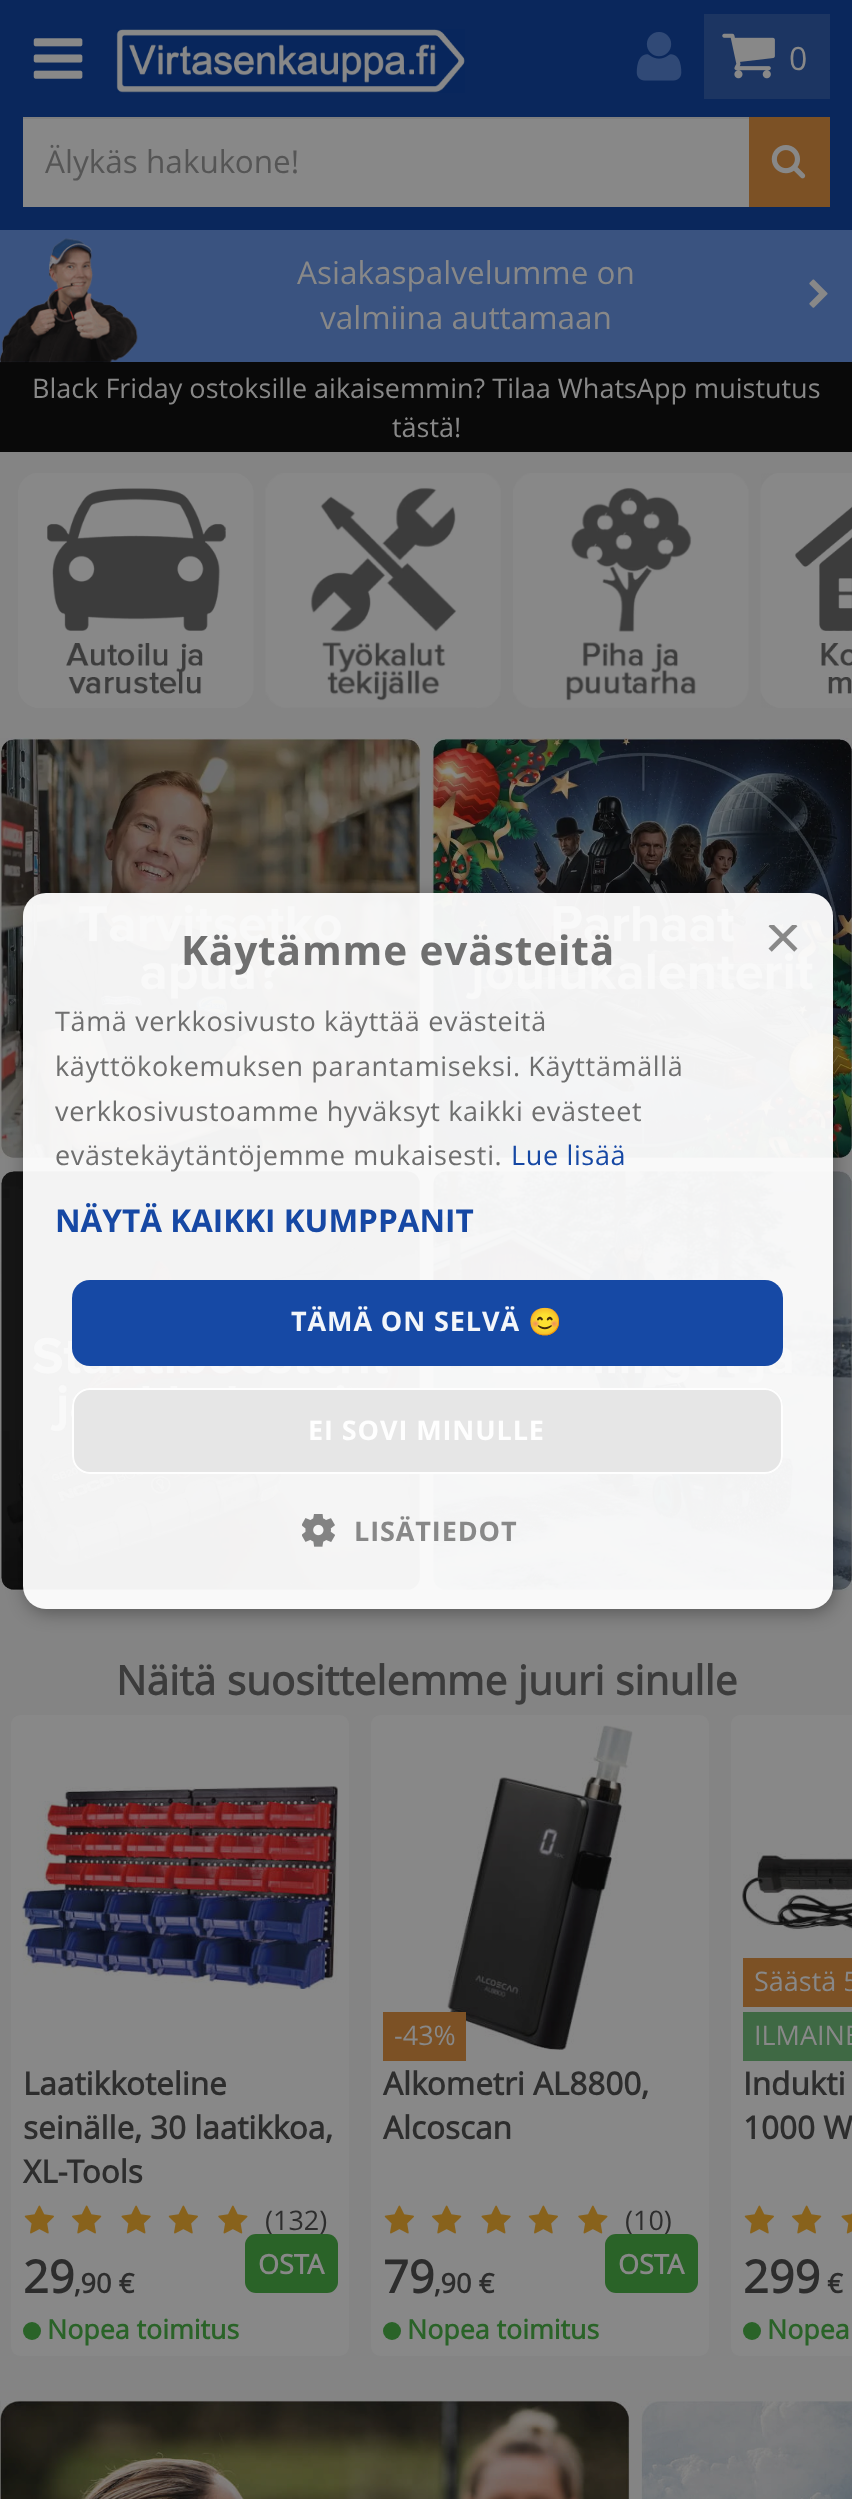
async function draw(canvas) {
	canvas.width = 852;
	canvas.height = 2499;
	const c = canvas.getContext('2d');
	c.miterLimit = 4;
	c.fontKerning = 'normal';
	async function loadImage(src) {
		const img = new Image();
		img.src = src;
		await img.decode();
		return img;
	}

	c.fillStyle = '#848484';
	c.fillRect(0, 0, 852, 2499);
	c.fillStyle = '#0a275c';
	c.fillRect(0, 0, 852, 230);
	c.drawImage(await loadImage('img1.png'), 33, 38, 50, 41);
	c.drawImage(await loadImage('img2.png'), 116, 29, 349, 64);
	c.drawImage(await loadImage('img3.png'), 636, 32, 46, 49);
	c.fillStyle = '#1c3562';
	c.fillRect(704, 14, 126, 85);
	c.drawImage(await loadImage('img4.png'), 722, 33, 53, 46);
	c.font = '32px Open Sans';
	c.fillStyle = '#888';
	c.fillText('0', 789, 70);
	c.fillRect(23, 119, 726, 88);
	c.fillStyle = '#7f7f7f';
	c.fillRect(23, 117, 726, 2);
	c.font = '31.5px Open Sans';
	c.fillStyle = '#555';
	c.fillText('Älykäs hakukone!', 45, 173);
	c.fillStyle = '#7c5125';
	c.fillRect(749, 117, 81, 90);
	c.drawImage(await loadImage('img5.png'), 771, 145, 35, 34);
	c.fillStyle = '#3a5380';
	c.fillRect(0, 230, 852, 132);
	c.fillStyle = '#090909';
	c.fillRect(0, 362, 852, 90);
	c.drawImage(await loadImage('img6.png'), 0, 238, 138, 125);
	c.fillStyle = '#888';
	c.fillText('Asiakaspalvelumme on', 297, 284);
	c.fillText('valmiina auttamaan', 320, 329);
	c.drawImage(await loadImage('img7.png'), 809, 279, 19, 29);
	c.font = '27px Open Sans';
	c.fillText('Black Friday ostoksille aikaisemmin? Tilaa WhatsApp muistutus', 32, 398);
	c.fillText('tästä!', 392, 437);
	c.drawImage(await loadImage('img8.png'), 18, 473, 236, 235);
	c.drawImage(await loadImage('img9.png'), 265, 473, 236, 235);
	c.drawImage(await loadImage('img10.png'), 513, 473, 236, 235);
	c.drawImage(await loadImage('img11.png'), 760, 473, 92, 235);
	c.drawImage(await loadImage('img12.png'), 0, 738, 421, 421);
	c.drawImage(await loadImage('img13.png'), 432, 738, 420, 421);
	c.drawImage(await loadImage('img14.png'), 0, 1170, 421, 421);
	c.drawImage(await loadImage('img15.png'), 432, 1170, 420, 421);
	c.font = 'bold 40.5px Open Sans';
	c.fillStyle = '#3c3c3c';
	c.fillText('Näitä suosittelemme juuri sinulle', 116, 1695);
	c.fillStyle = '#888';
	c.beginPath();
	c.roundRect(11, 1715, 338, 641, 9);
	c.fill();
	c.drawImage(await loadImage('img16.png'), 22, 1786, 316, 203);
	c.font = 'bold 31.5px Open Sans';
	c.fillStyle = '#2d2d2d';
	for (const [text, x, y] of [
		['Laatikkoteline', 23, 2095],
		['seinälle, 30 laatikkoa,', 23, 2139],
		['XL-Tools', 23, 2183],
	]) {
		c.fillText(text, x, y);
	}
	c.drawImage(await loadImage('img17.png'), 24, 2205, 30, 29);
	c.drawImage(await loadImage('img18.png'), 72, 2205, 30, 29);
	c.drawImage(await loadImage('img19.png'), 121, 2205, 30, 29);
	c.drawImage(await loadImage('img17.png'), 168, 2205, 30, 29);
	c.drawImage(await loadImage('img20.png'), 218, 2205, 30, 29);
	c.font = '27px Open Sans';
	c.fillText('(132)', 265, 2230);
	c.font = 'bold 45px Open Sans';
	c.fillText('29', 23, 2293);
	c.font = 'bold 27px Open Sans';
	c.fillText(',90 €', 74, 2293);
	c.fillStyle = '#2a6328';
	c.beginPath();
	c.roundRect(245, 2234, 93, 59, 11);
	c.fill();
	c.fillStyle = '#888';
	c.fillText('OSTA', 258, 2274);
	c.fillStyle = '#2a6328';
	c.beginPath();
	c.arc(32, 2331, 9, 0, 2 * Math.PI);
	c.fill();
	c.font = 'bold 26.75px Open Sans';
	c.fillText('Nopea toimitus', 47, 2339);
	c.fillStyle = '#888';
	c.beginPath();
	c.roundRect(371, 1715, 338, 641, 9);
	c.fill();
	c.drawImage(await loadImage('img21.png'), 447, 1725, 186, 325);
	c.fillStyle = '#7c5125';
	c.fillRect(383, 2012, 83, 49);
	c.font = '27px Open Sans';
	c.fillStyle = '#888';
	c.fillText('-43%', 394, 2045);
	c.font = 'bold 31.5px Open Sans';
	c.fillStyle = '#2d2d2d';
	c.fillText('Alkometri AL8800,', 383, 2095);
	c.fillText('Alcoscan', 383, 2139);
	c.drawImage(await loadImage('img17.png'), 384, 2205, 30, 29);
	c.drawImage(await loadImage('img18.png'), 432, 2205, 30, 29);
	c.drawImage(await loadImage('img19.png'), 481, 2205, 30, 29);
	c.drawImage(await loadImage('img17.png'), 528, 2205, 30, 29);
	c.drawImage(await loadImage('img20.png'), 578, 2205, 30, 29);
	c.font = '27px Open Sans';
	c.fillText('(10)', 625, 2230);
	c.font = 'bold 45px Open Sans';
	c.fillText('79', 383, 2293);
	c.font = 'bold 27px Open Sans';
	c.fillText(',90 €', 434, 2293);
	c.fillStyle = '#2a6328';
	c.beginPath();
	c.roundRect(605, 2234, 93, 59, 11);
	c.fill();
	c.fillStyle = '#888';
	c.fillText('OSTA', 618, 2274);
	c.fillStyle = '#2a6328';
	c.beginPath();
	c.arc(392, 2331, 9, 0, 2 * Math.PI);
	c.fill();
	c.font = 'bold 26.75px Open Sans';
	c.fillText('Nopea toimitus', 407, 2339);
	c.fillStyle = '#888';
	c.beginPath();
	c.moveTo(740, 1715);
	c.lineTo(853, 1715);
	c.lineTo(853, 2356);
	c.lineTo(740, 2356);
	c.bezierCurveTo(735, 2356, 731, 2352, 731, 2347);
	c.lineTo(731, 1724);
	c.bezierCurveTo(731, 1719, 735, 1715, 740, 1715);
	c.closePath();
	c.fill();
	c.drawImage(await loadImage('img22.png'), 742, 1852, 110, 79);
	c.fillStyle = '#7c5125';
	c.fillRect(743, 1958, 109, 49);
	c.font = '27px Open Sans';
	c.fillStyle = '#888';
	c.fillText('Säästä 5', 754, 1991);
	c.fillStyle = '#3f6944';
	c.fillRect(743, 2012, 109, 49);
	c.fillStyle = '#888';
	c.fillText('ILMAINE', 754, 2045);
	c.font = 'bold 31.5px Open Sans';
	c.fillStyle = '#2d2d2d';
	c.fillText('Indukti', 743, 2095);
	c.fillText('1000 W', 743, 2139);
	c.drawImage(await loadImage('img17.png'), 744, 2205, 30, 29);
	c.drawImage(await loadImage('img18.png'), 792, 2205, 30, 29);
	c.drawImage(await loadImage('img23.png'), 841, 2213, 11, 21);
	c.font = 'bold 45px Open Sans';
	c.fillText('299', 743, 2293);
	c.font = 'bold 27px Open Sans';
	c.fillText('€', 827, 2293);
	c.fillStyle = '#2a6328';
	c.beginPath();
	c.arc(752, 2331, 9, 0, 2 * Math.PI);
	c.fill();
	c.font = 'bold 26.75px Open Sans';
	c.fillText('Nopea', 767, 2339);
	c.drawImage(await loadImage('img24.png'), 0, 2400, 630, 99);
	c.drawImage(await loadImage('img25.png'), 641, 2401, 211, 98);
	c.save();
	c.beginPath();
	c.moveTo(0, 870);
	c.lineTo(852, 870);
	c.lineTo(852, 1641);
	c.lineTo(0, 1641);
	c.closePath();
	c.moveTo(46, 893);
	c.lineTo(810, 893);
	c.bezierCurveTo(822.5, 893, 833, 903.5, 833, 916);
	c.lineTo(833, 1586);
	c.bezierCurveTo(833, 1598.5, 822.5, 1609, 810, 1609);
	c.lineTo(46, 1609);
	c.bezierCurveTo(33.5, 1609, 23, 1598.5, 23, 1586);
	c.lineTo(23, 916);
	c.bezierCurveTo(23, 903.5, 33.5, 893, 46, 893);
	c.closePath();
	c.clip('evenodd');
	c.fillStyle = '#00000054';
	c.filter = 'blur(9px)';
	c.beginPath();
	c.roundRect(25, 898, 810, 715, 23);
	c.fill();
	c.filter = 'none';
	c.restore();
	c.fillStyle = '#fffffff2';
	c.beginPath();
	c.roundRect(23, 893, 810, 716, 23);
	c.fill();
	c.letterSpacing = '0.9px';
	c.font = 'bold 40.5px "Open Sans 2"';
	c.fillStyle = '#6f6f6f';
	c.fillText('Käytämme evästeitä', 181, 965);
	c.save();
	c.beginPath();
	c.rect(765, 925, 34, 34);
	c.clip();
	c.letterSpacing = '0px';
	c.font = '65px Liberation Sans';
	c.fillStyle = '#888';
	c.fillText('×', 764, 959);
	c.restore();
	c.letterSpacing = '0.65px';
	c.font = '27px "Open Sans 2"';
	for (const [text, x, y] of [
		['Tämä verkkosivusto käyttää evästeitä', 55, 1031],
		['käyttökokemuksen parantamiseksi. Käyttämällä', 55, 1076],
		['verkkosivustoamme hyväksyt kaikki evästeet', 55, 1121],
		['evästekäytäntöjemme mukaisesti.', 55, 1165],
	]) {
		c.fillText(text, x, y);
	}
	c.fillStyle = '#1648a4';
	c.fillText('Lue lisää', 511, 1165);
	c.letterSpacing = '0px';
	c.font = 'bold 31.5px "Open Sans 2"';
	c.fillText('NÄYTÄ KAIKKI KUMPPANIT', 55, 1232);
	c.fillStyle = '#0a3fa0f2';
	c.beginPath();
	c.roundRect(72, 1280, 711, 86, 18);
	c.fill();
	c.letterSpacing = '0.9px';
	c.font = 'bold 27px "Open Sans 2"';
	c.fillStyle = '#f3f6fa';
	c.fillText('TÄMÄ ON SELVÄ', 291, 1331);
	c.font = 'bold 27px Noto Color Emoji';
	c.fillText('😊', 528, 1331);
	c.fillStyle = '#e5e5e5f2';
	c.beginPath();
	c.roundRect(72, 1388, 711, 86, 18);
	c.fill();
	c.beginPath();
	c.roundRect(73, 1389, 709, 84, 17);
	c.strokeStyle = '#fffffff2';
	c.lineWidth = 2;
	c.stroke();
	c.font = 'bold 27px "Open Sans 2"';
	c.fillStyle = '#fefefe';
	c.fillText('EI SOVI MINULLE', 308, 1440);
	c.drawImage(await loadImage('img26.png'), 302, 1514, 33, 33);
	c.fillStyle = '#888';
	c.fillText('LISÄTIEDOT', 354, 1541);
}

draw(document.querySelector('canvas'));
